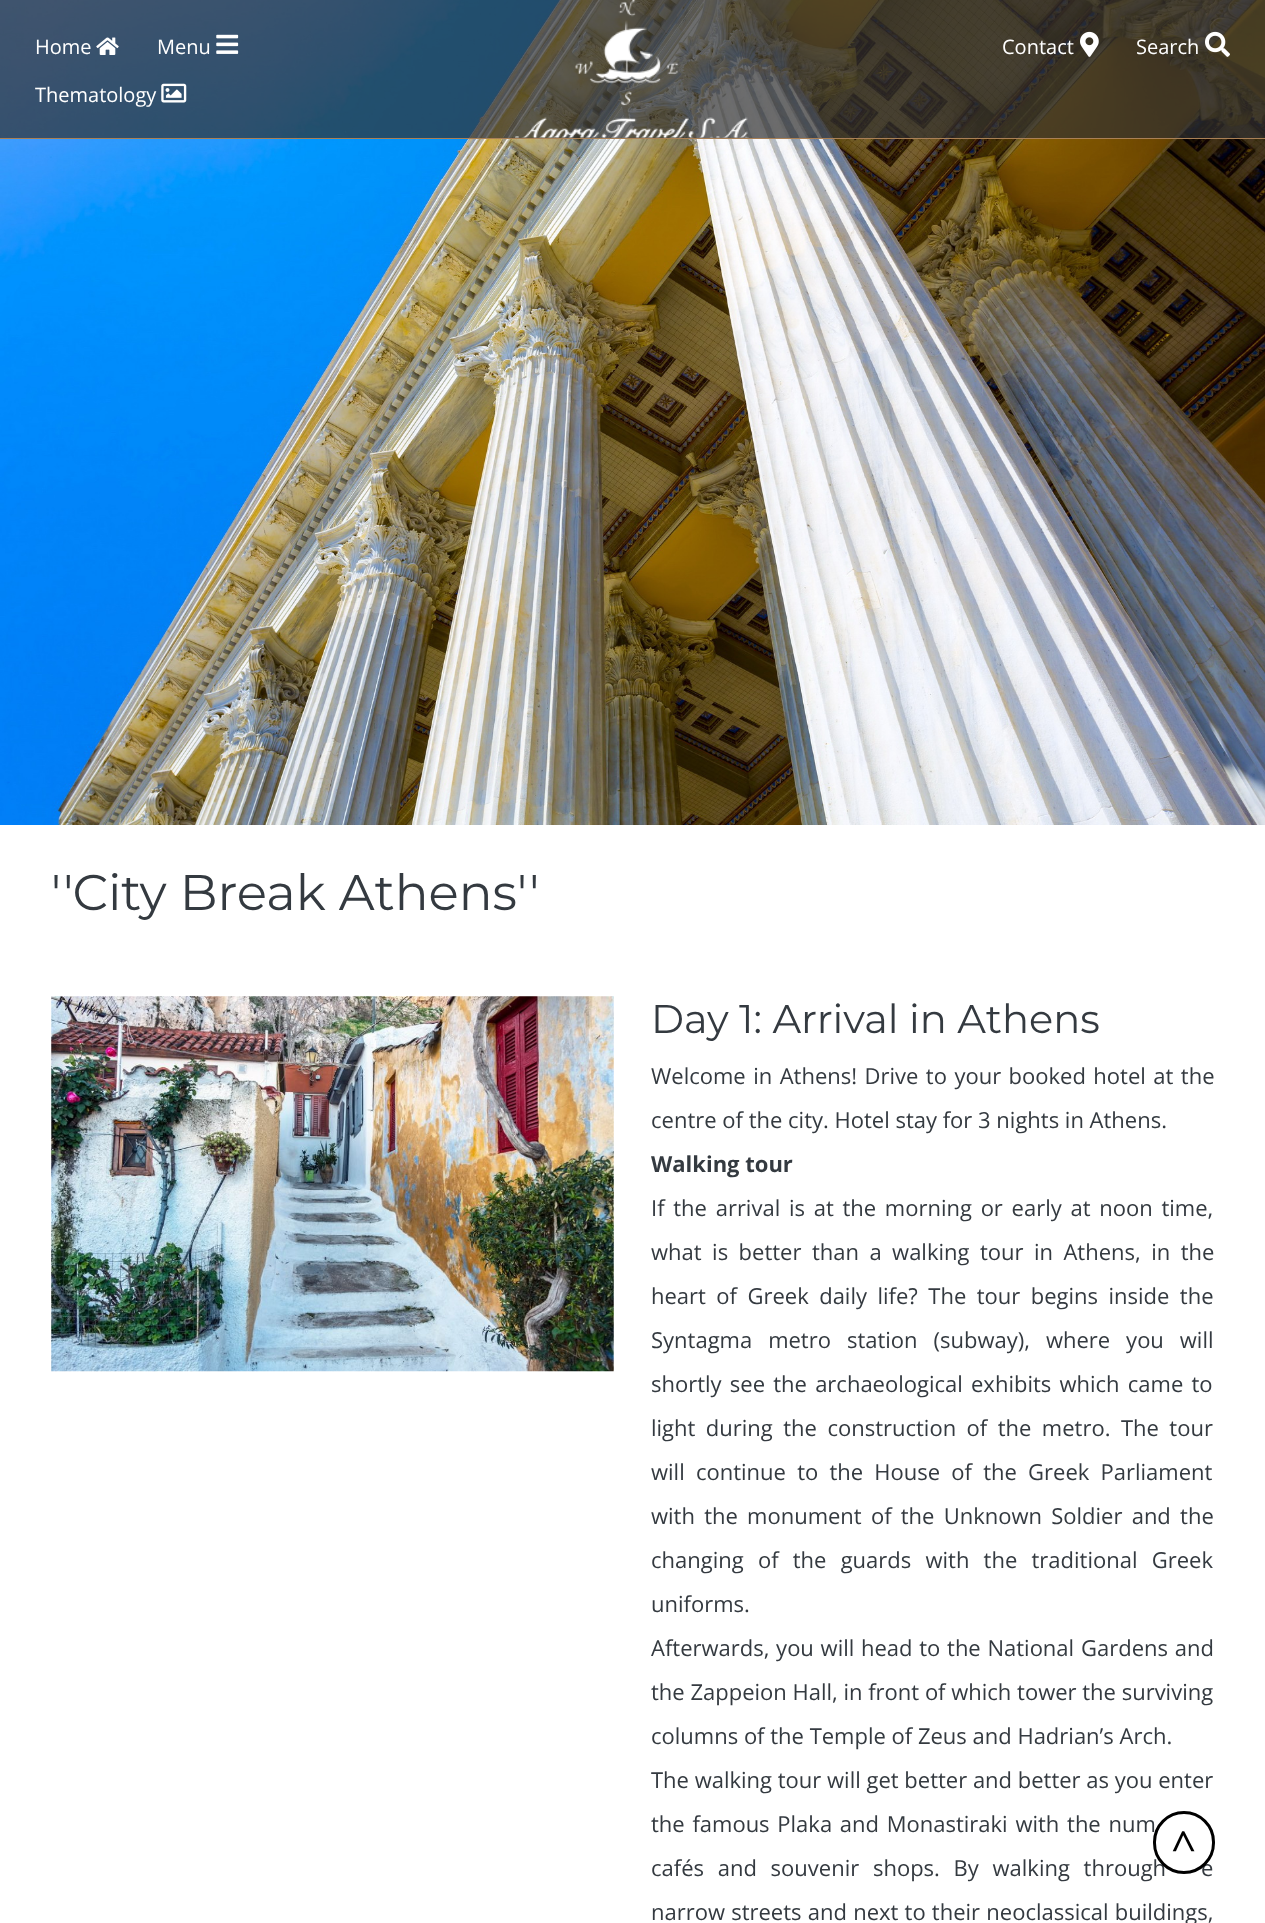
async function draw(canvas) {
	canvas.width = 1265;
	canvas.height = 1923;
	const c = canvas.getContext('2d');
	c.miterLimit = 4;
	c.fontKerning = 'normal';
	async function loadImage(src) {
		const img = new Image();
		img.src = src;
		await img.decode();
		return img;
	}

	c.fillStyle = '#fff';
	c.fillRect(0, 0, 1265, 1923);
	c.drawImage(await loadImage('img7.png'), 0, 0, 1265, 825);
	c.fillStyle = '#303030b3';
	c.fillRect(0, 0, 1265, 138);
	c.fillStyle = '#aa8055';
	c.fillRect(0, 138, 1265, 1);
	c.font = '20px Open Sans';
	c.fillStyle = '#fff';
	c.fillText('Home', 35, 54);
	c.drawImage(await loadImage('img1.png'), 96, 37, 23, 18);
	c.fillText('Menu', 157, 54);
	c.drawImage(await loadImage('img2.png'), 216, 34, 23, 20);
	c.fillText('Thematology', 35, 102);
	c.drawImage(await loadImage('img3.png'), 161, 83, 26, 20);
	c.drawImage(await loadImage('img4.png'), 515, 0, 234, 138);
	c.fillText('Contact', 1002, 54);
	c.drawImage(await loadImage('img5.png'), 1080, 31, 19, 26);
	c.fillText('Search', 1136, 54);
	c.drawImage(await loadImage('img6.png'), 1205, 31, 25, 26);
	c.font = '50px Montserrat';
	c.fillStyle = '#343a40';
	c.fillText('\'\'City Break Athens\'\'', 51, 910);
	c.drawImage(await loadImage('img8.png'), 51, 996, 563, 376);
	c.font = '40px Montserrat';
	c.fillText('Day 1: Arrival in Athens', 651, 1033);
	c.wordSpacing = '1.75px';
	c.font = '22px Open Sans';
	c.fillText('Welcome in Athens! Drive to your booked hotel at the', 651, 1084);
	c.wordSpacing = '0px';
	c.fillText('centre of the city. Hotel stay for 3 nights in Athens.', 651, 1128);
	c.font = 'bold 22px Open Sans';
	c.fillText('Walking tour', 651, 1172);
	c.wordSpacing = '3px';
	c.font = '22px Open Sans';
	c.fillText('If the arrival is at the morning or early at noon time,', 651, 1216);
	c.wordSpacing = '4.75px';
	c.fillText('what is better than a walking tour in Athens, in the', 651, 1260);
	c.fillText('heart of Greek daily life? The tour begins inside the', 651, 1304);
	c.wordSpacing = '10.25px';
	c.fillText('Syntagma metro station (subway), where you will', 651, 1348);
	c.wordSpacing = '2.5px';
	c.fillText('shortly see the archaeological exhibits which came to', 651, 1392);
	c.wordSpacing = '4.75px';
	c.fillText('light during the construction of the metro. The tour', 651, 1436);
	c.wordSpacing = '5.5px';
	c.fillText('will continue to the House of the Greek Parliament', 651, 1480);
	c.wordSpacing = '3.5px';
	c.fillText('with the monument of the Unknown Soldier and the', 651, 1524);
	c.wordSpacing = '8.5px';
	c.fillText('changing of the guards with the traditional Greek', 651, 1568);
	c.wordSpacing = '0px';
	c.fillText('uniforms.', 651, 1612);
	c.wordSpacing = '1px';
	c.fillText('Afterwards, you will head to the National', 651, 1656);
	c.fillText('Gardens and', 1081, 1656);
	c.wordSpacing = '0px';
	for (const [text, x, y] of [
		['the Zappeion Hall, in front of which tower the surviving', 651, 1700],
		['columns of the Temple of Zeus and Hadrian’s Arch.', 651, 1744],
		['The walking tour will get better and better as you enter', 651, 1788],
	]) {
		c.fillText(text, x, y);
	}
	c.wordSpacing = '2px';
	c.fillText('the famous Plaka and Monastiraki with the num', 651, 1832);
	c.wordSpacing = '8px';
	c.fillText('cafés and souvenir shops. By walking through', 651, 1876);
	c.fillText('e', 1201, 1876);
	c.wordSpacing = '0.5px';
	c.fillText('narrow streets and next to their neoclassical buildings,', 651, 1920);
	c.fillStyle = '#fff';
	c.beginPath();
	c.roundRect(1154.5, 1812.5, 59, 60, 29.5);
	c.fill();
	c.strokeStyle = '#000';
	c.lineWidth = 3;
	c.stroke();
	c.wordSpacing = '0px';
	c.font = '44px Open Sans';
	c.fillStyle = '#000';
	c.fillText('^', 1171, 1863);
}

draw(document.querySelector('canvas'));
